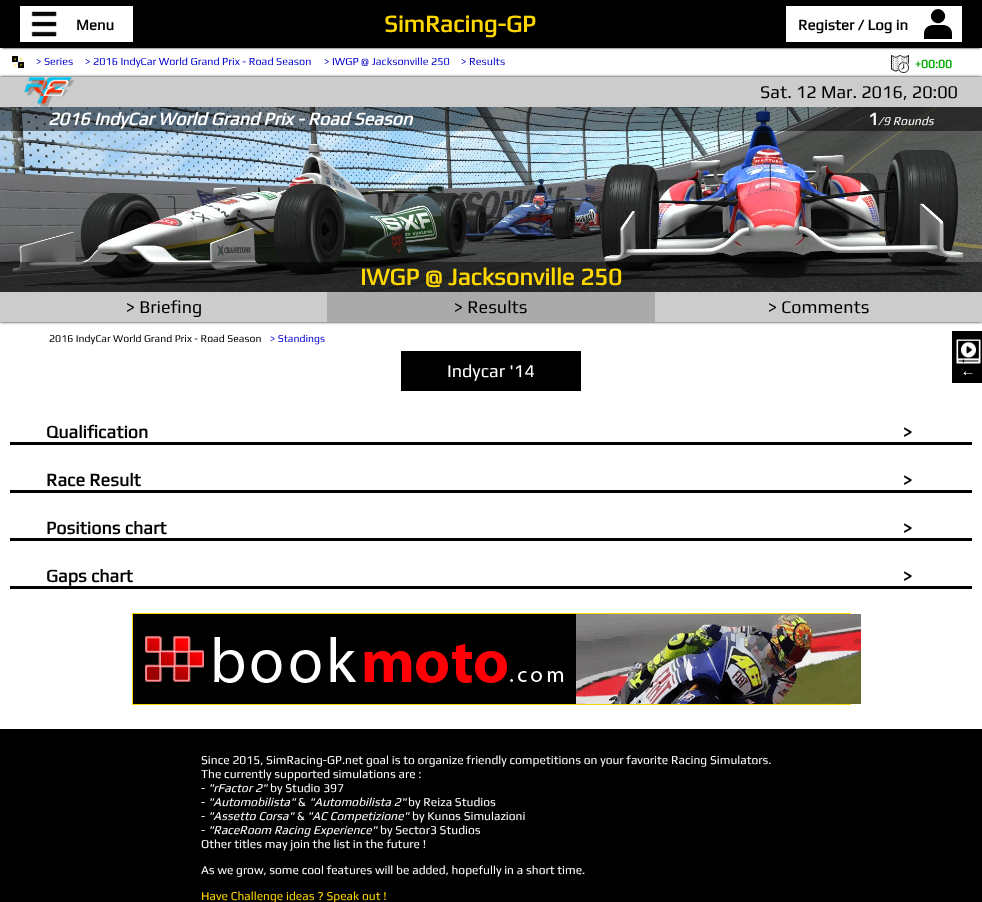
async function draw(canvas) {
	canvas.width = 982;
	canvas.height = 902;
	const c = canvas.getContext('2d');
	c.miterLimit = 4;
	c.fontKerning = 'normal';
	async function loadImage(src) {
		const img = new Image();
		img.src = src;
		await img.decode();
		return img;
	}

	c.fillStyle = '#fff';
	c.fillRect(0, 0, 982, 902);
	c.fillStyle = '#000';
	c.filter = 'blur(1px)';
	c.beginPath();
	c.rect(2, 4, 978, 44);
	c.fill();
	c.filter = 'none';
	c.fillRect(0, 0, 982, 48);
	c.fillStyle = '#fff';
	c.fillRect(20, 6, 113, 36);
	c.drawImage(await loadImage('img1.png'), 31, 11, 26, 26);
	c.font = 'bold 15px Play';
	c.fillStyle = '#000';
	c.fillText('Menu', 76, 30);
	c.font = 'bold 24px Play';
	c.fillStyle = '#ffd700';
	c.fillText('SimRacing-GP', 384, 32);
	c.fillStyle = '#fff';
	c.fillRect(786, 6, 176, 36);
	c.font = 'bold 15px Play';
	c.fillStyle = '#000';
	c.fillText('Register / Log in', 798, 30);
	c.drawImage(await loadImage('img2.png'), 924, 9, 28, 30);
	c.drawImage(await loadImage('img3.png'), 12, 56, 12, 12);
	c.font = '10.8px Play';
	c.fillStyle = '#00c';
	for (const [text, x, y] of [
		['> Series', 36, 65],
		['> 2016 IndyCar World Grand Prix - Road Season', 85, 65],
		['> IWGP @ Jacksonville 250', 324, 65],
		['> Results', 461, 65],
	]) {
		c.fillText(text, x, y);
	}
	c.fillStyle = '#000';
	c.filter = 'blur(1.5px)';
	c.beginPath();
	c.rect(0, 77, 982, 245);
	c.fill();
	c.filter = 'none';
	c.drawImage(await loadImage('img4.png'), 891, 55, 18, 18);
	c.font = 'bold 12px Play';
	c.fillStyle = '#0a0';
	c.fillText('+00:00', 915, 68);
	c.fillStyle = '#ccc';
	c.fillRect(0, 77, 982, 30);
	c.drawImage(await loadImage('img5.png'), 24, 77, 50, 30);
	c.font = '18px Play';
	c.fillStyle = '#000';
	c.fillText('Sat. 12 Mar. 2016, 20:00', 760, 98);
	c.drawImage(await loadImage('img6.png'), 0, 107, 982, 185);
	c.fillStyle = '#00000080';
	c.fillRect(0, 107, 982, 24);
	c.font = 'italic bold 18px Play';
	c.fillStyle = '#fff';
	c.fillText('2016 IndyCar World Grand Prix - Road Season', 48, 125);
	c.font = 'bold 18px Play';
	c.fillText('1', 868, 125);
	c.font = 'italic 12px Play';
	c.fillText('/9 Rounds', 878, 125);
	c.fillStyle = '#00000080';
	c.fillRect(0, 262, 982, 30);
	c.font = 'bold 24px Play';
	c.fillStyle = '#ffd700';
	c.fillText('IWGP @ Jacksonville 250', 360, 285);
	c.fillStyle = '#ccc';
	c.fillRect(0, 292, 982, 30);
	c.font = '18px Play';
	c.fillStyle = '#000';
	c.fillText('> Briefing', 126, 313);
	c.fillStyle = '#aaa';
	c.fillRect(327, 292, 328, 30);
	c.fillStyle = '#000';
	c.fillText('> Results', 454, 313);
	c.fillText('> Comments', 768, 313);
	c.font = '10.5px Play';
	c.fillText('2016 IndyCar World Grand Prix - Road Season', 49, 342);
	c.fillStyle = '#00c';
	c.fillText('> Standings', 270, 342);
	c.fillStyle = '#000';
	c.fillRect(401, 351, 180, 40);
	c.font = '18px Play';
	c.fillStyle = '#fff';
	c.fillText('Indycar \'14', 447, 377);
	c.fillStyle = '#000';
	c.fillRect(952, 331, 30, 52);
	c.drawImage(await loadImage('img7.png'), 956, 339, 25, 25);
	c.font = 'bold 15px Liberation Sans';
	c.fillStyle = '#fff';
	c.save();
	c.translate(972, 377);
	c.rotate(-90 * Math.PI / 180);
	c.fillText('↑', 0, 0);
	c.restore();
	c.fillStyle = '#000';
	c.fillRect(10, 442, 962, 3);
	c.font = 'bold 18px Play';
	c.fillText('Qualification', 46, 438);
	c.fillText('>', 903, 438);
	c.fillRect(10, 490, 962, 3);
	c.fillText('Race Result', 46, 486);
	c.fillText('>', 903, 486);
	c.fillRect(10, 538, 962, 3);
	c.fillText('Positions chart', 46, 534);
	c.fillText('>', 903, 534);
	c.fillRect(10, 586, 962, 3);
	c.fillText('Gaps chart', 46, 582);
	c.fillText('>', 903, 582);
	c.strokeStyle = '#ffd700';
	c.strokeRect(132.5, 613.5, 718, 91);
	c.drawImage(await loadImage('img8.png'), 133, 614, 728, 90);
	c.fillRect(0, 729, 982, 173);
	c.font = '12px Play';
	c.fillStyle = '#fff';
	for (const [text, x, y] of [
		['Since 2015, SimRacing-GP.net goal is to organize friendly competitions on your favorite Racing Simulators.', 201, 764],
		['The currently supported simulations are :', 201, 778],
		['-', 201, 792],
	]) {
		c.fillText(text, x, y);
	}
	c.font = 'italic 12px Play';
	c.fillText('"rFactor 2"', 208, 792);
	c.font = '12px Play';
	c.fillText('by Studio 397', 270, 792);
	c.fillText('-', 201, 806);
	c.font = 'italic 12px Play';
	c.fillText('"Automobilista"', 208, 806);
	c.font = '12px Play';
	c.fillText('&', 298, 806);
	c.font = 'italic 12px Play';
	c.fillText('"Automobilista 2"', 309, 806);
	c.font = '12px Play';
	c.fillText('by Reiza Studios', 408, 806);
	c.fillText('-', 201, 820);
	c.font = 'italic 12px Play';
	c.fillText('"Assetto Corsa"', 208, 820);
	c.font = '12px Play';
	c.fillText('&', 297, 820);
	c.font = 'italic 12px Play';
	c.fillText('"AC Competizione"', 307, 820);
	c.font = '12px Play';
	c.fillText('by Kunos Simulazioni', 412, 820);
	c.fillText('-', 201, 834);
	c.font = 'italic 12px Play';
	c.fillText('"RaceRoom Racing Experience"', 208, 834);
	c.font = '12px Play';
	for (const [text, x, y] of [
		['by Sector3 Studios', 380, 834],
		['Other titles may join the list in the future !', 201, 848],
		['As we grow, some cool features will be added, hopefully in a short time.', 201, 874],
	]) {
		c.fillText(text, x, y);
	}
	c.fillStyle = '#ffd700';
	c.fillText('Have Challenge ideas ? Speak out !', 201, 900);
}

draw(document.querySelector('canvas'));
